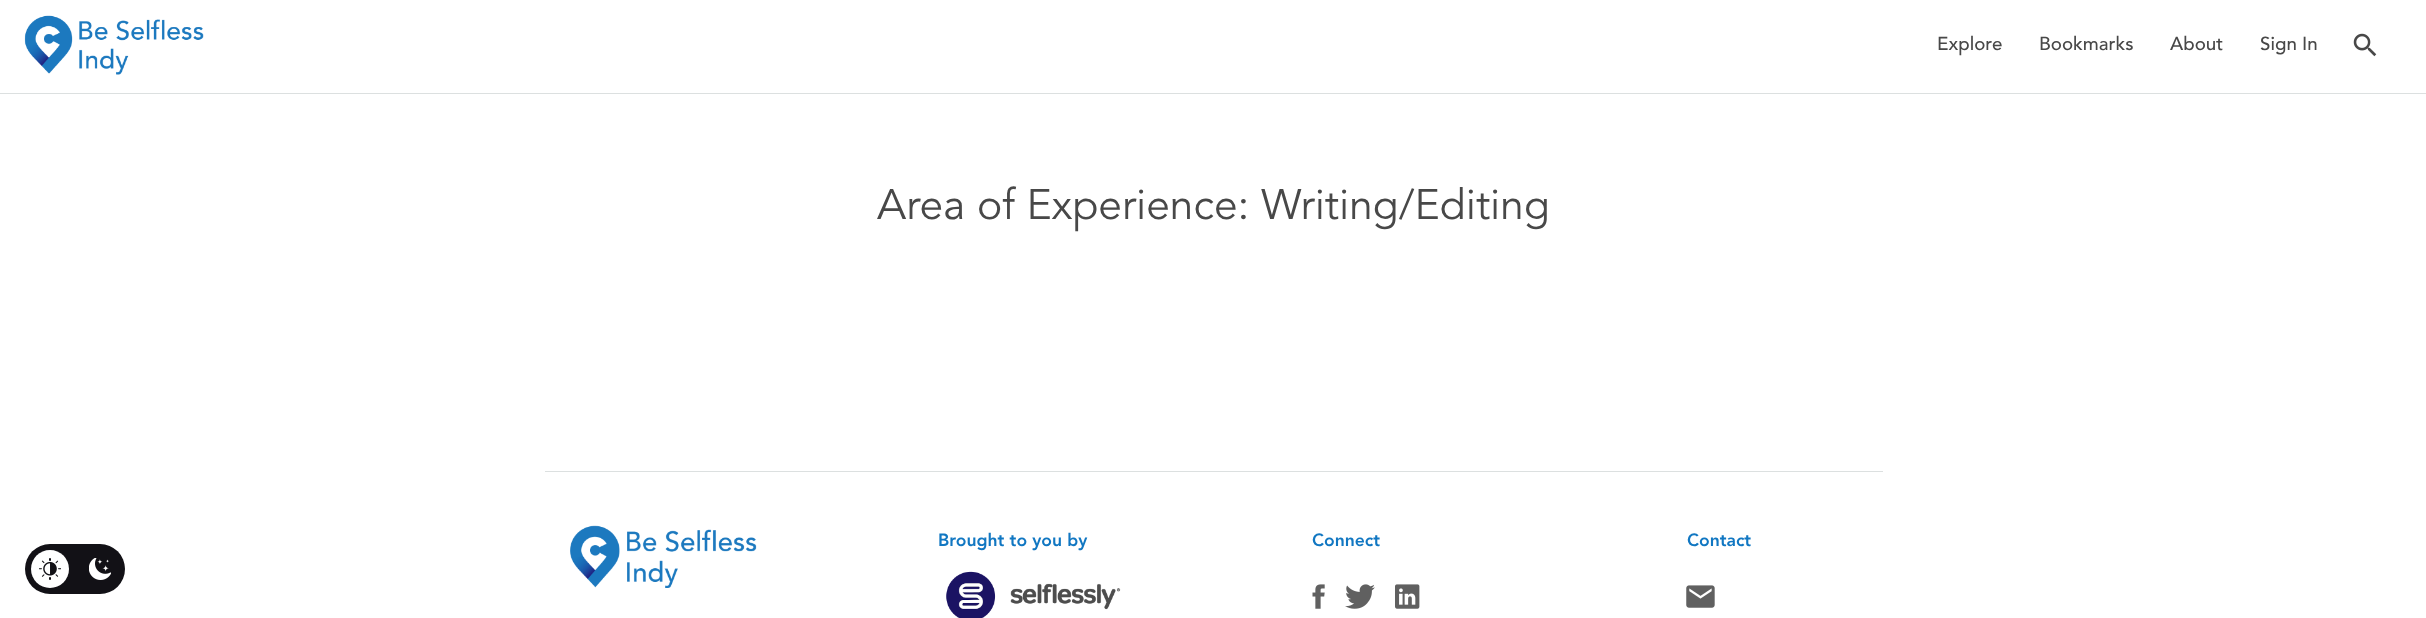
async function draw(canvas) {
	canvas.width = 2426;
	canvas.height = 618;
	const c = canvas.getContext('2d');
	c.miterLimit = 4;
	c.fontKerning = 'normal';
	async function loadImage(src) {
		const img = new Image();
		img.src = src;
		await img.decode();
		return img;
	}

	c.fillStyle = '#fff';
	c.fillRect(0, 0, 2426, 618);
	c.fillStyle = '#dce0e0';
	c.fillRect(0, 93, 2426, 1);
	c.drawImage(await loadImage('img1.png'), 24, 15, 180, 60);
	c.font = '500 18.75px Avenir';
	c.fillStyle = '#484848';
	for (const [text, x, y] of [
		['Explore', 1937, 50],
		['Bookmarks', 2039, 50],
		['About', 2170, 50],
		['Sign In', 2260, 50],
	]) {
		c.fillText(text, x, y);
	}
	c.drawImage(await loadImage('img2.png'), 2353, 33, 24, 24);
	c.font = '42.5px Avenir';
	c.fillText('Area of Experience: Writing/Editing', 877, 219);
	c.fillStyle = '#dce0e0';
	c.fillRect(545, 471, 1338, 1);
	c.drawImage(await loadImage('img3.png'), 570, 525, 187, 63);
	c.font = '900 17.5px Avenir';
	c.fillStyle = '#1177c2';
	c.fillText('Brought to you by', 938, 546);
	c.drawImage(await loadImage('img4.png'), 946, 571, 175, 47);
	c.fillText('Connect', 1312, 546);
	c.drawImage(await loadImage('img5.png'), 1312, 584, 13, 25);
	c.drawImage(await loadImage('img6.png'), 1345, 584, 30, 25);
	c.drawImage(await loadImage('img7.png'), 1395, 584, 25, 25);
	c.fillText('Contact', 1687, 546);
	c.drawImage(await loadImage('img8.png'), 1686, 585, 29, 23);
	c.fillStyle = '#121116';
	c.beginPath();
	c.roundRect(25, 544, 100, 50, 25);
	c.fill();
	c.fillStyle = '#fff';
	c.beginPath();
	c.arc(50, 569, 19, 0, 2 * Math.PI);
	c.fill();
	c.drawImage(await loadImage('img9.png'), 39, 558, 22, 22);
	c.drawImage(await loadImage('img10.png'), 89, 558, 22, 22);
}

draw(document.querySelector('canvas'));
